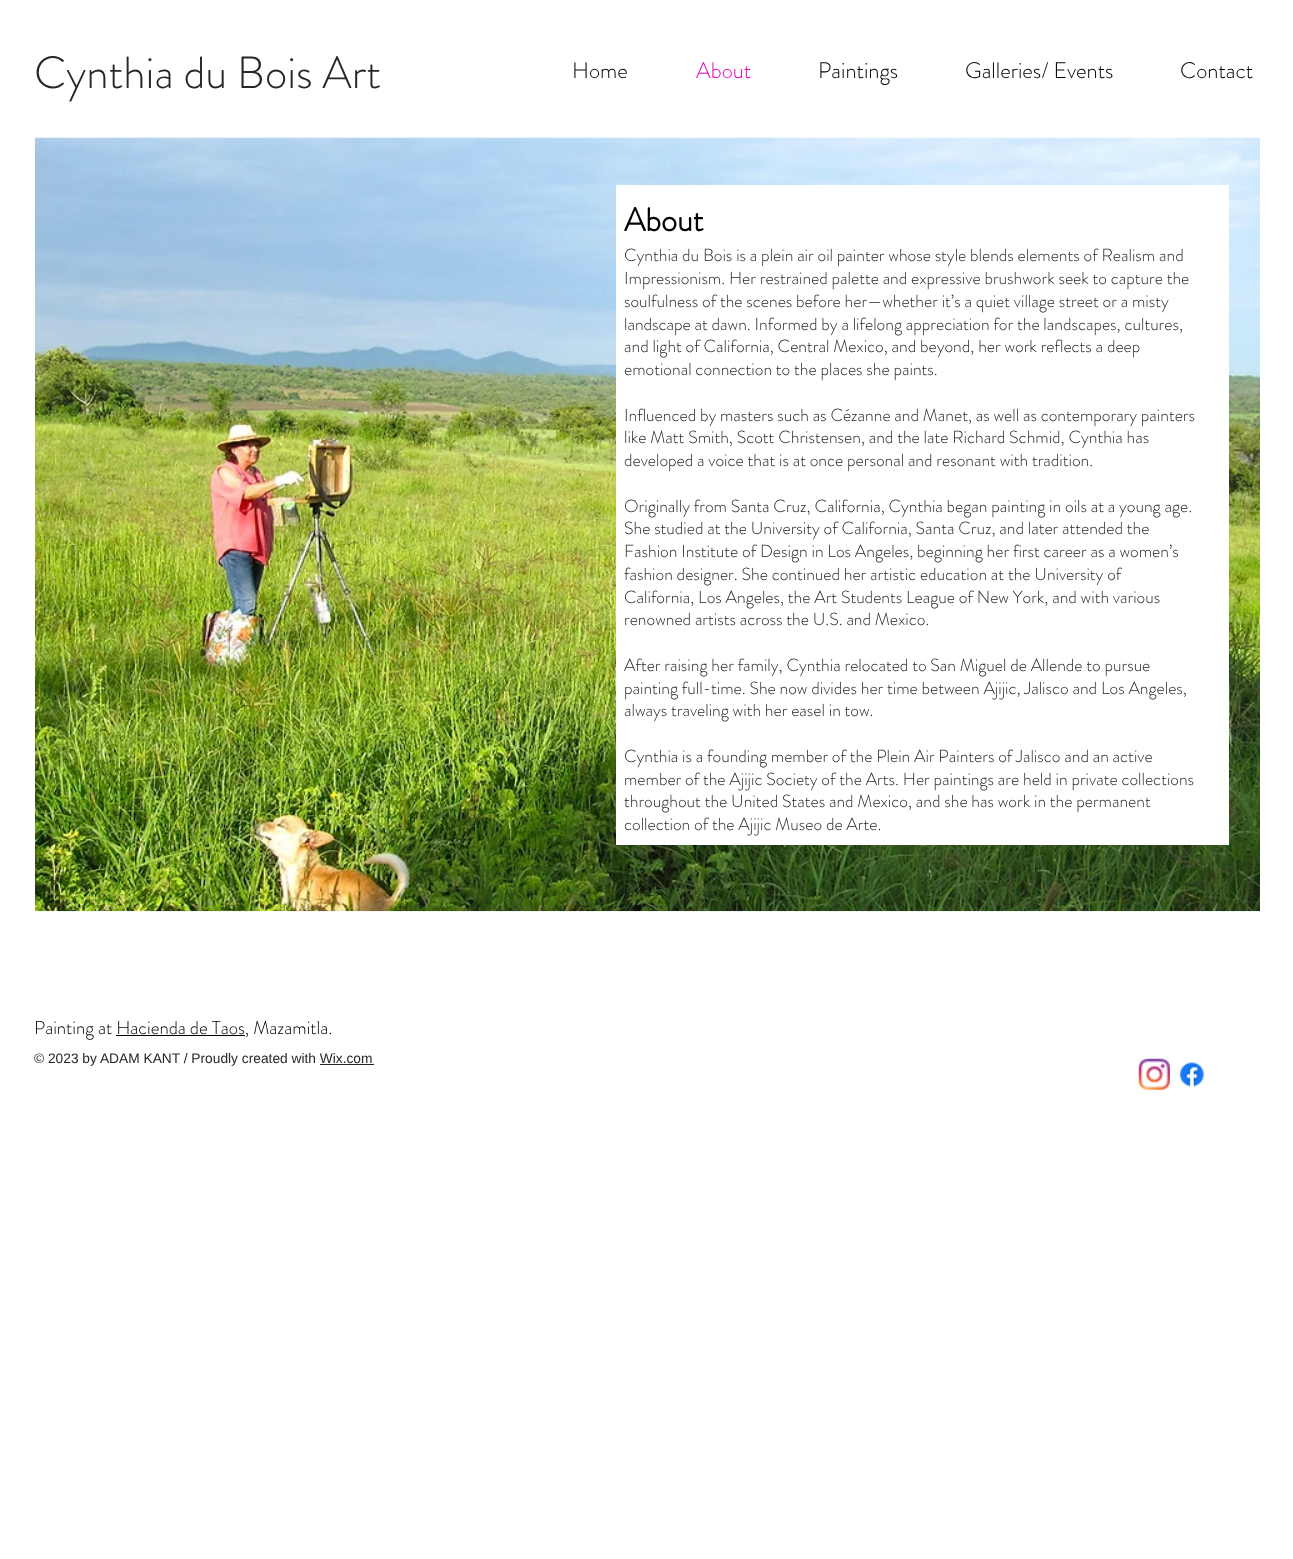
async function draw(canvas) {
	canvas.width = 1293;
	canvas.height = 1559;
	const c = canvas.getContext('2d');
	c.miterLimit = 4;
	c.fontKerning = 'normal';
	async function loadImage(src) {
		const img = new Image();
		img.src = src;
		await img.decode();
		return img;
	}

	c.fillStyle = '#fff';
	c.fillRect(0, 0, 1293, 1559);
	c.font = '300 45px "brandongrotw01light"';
	c.fillStyle = '#272727';
	c.fillText('Cynthia du Bois Art', 34, 88);
	c.font = '300 22.5px "brandongrotw01light"';
	c.fillStyle = '#000';
	c.fillText('Home', 572, 78);
	c.fillStyle = '#ea04b8';
	c.fillText('About', 696, 78);
	c.fillStyle = '#000';
	for (const [text, x, y] of [
		['Paintings', 818, 78],
		['Galleries/ Events', 965, 78],
		['Contact', 1180, 78],
	]) {
		c.fillText(text, x, y);
	}
	c.drawImage(await loadImage('img1.png'), 35, 137, 1225, 775);
	c.fillStyle = '#fff';
	c.fillRect(616, 185, 613, 660);
	c.font = 'bold 32.5px "brandongrotw01light"';
	c.fillStyle = '#000';
	c.fillText('About', 624, 231);
	c.font = '300 17.5px "brandongrotw01light"';
	c.fillStyle = '#272727';
	for (const [text, x, y] of [
		['Cynthia du Bois is a plein air oil painter whose style blends elements of Realism and', 624, 261],
		['Impressionism. Her restrained palette and expressive brushwork seek to capture the', 624, 284],
		['soulfulness of the scenes before her—whether it’s a quiet village street or a misty', 624, 307],
		['landscape at dawn. Informed by a lifelong appreciation for the landscapes, cultures,', 624, 330],
		['and light of California, Central Mexico, and beyond, her work reflects a deep', 624, 352],
		['emotional connection to the places she paints.', 624, 375],
		['Influenced by masters such as Cézanne and Manet, as well as contemporary painters', 624, 421],
		['like Matt Smith, Scott Christensen, and the late Richard Schmid, Cynthia has', 624, 443],
		['developed a voice that is at once personal and resonant with tradition.', 624, 466],
		['Originally from Santa Cruz, California, Cynthia began painting in oils at a young age.', 624, 512],
		['She studied at the University of California, Santa Cruz, and later attended the', 624, 534],
		['Fashion Institute of Design in Los Angeles, beginning her first career as a women’s', 624, 557],
		['fashion designer. She continued her artistic education at the University of', 624, 580],
		['California, Los Angeles, the Art Students League of New York, and with various', 624, 603],
		['renowned artists across the U.S. and Mexico.', 624, 625],
		['After raising her family, Cynthia relocated to San Miguel de Allende to pursue', 624, 671],
		['painting full-time. She now divides her time between Ajijic, Jalisco and Los Angeles,', 624, 694],
		['always traveling with her easel in tow.', 624, 716],
		['Cynthia is a founding member of the Plein Air Painters of Jalisco and an active', 624, 762],
		['member of the Ajijic Society of the Arts. Her paintings are held in private collections', 624, 785],
		['throughout the United States and Mexico, and she has work in the permanent', 624, 807],
		['collection of the Ajijic Museo de Arte.', 624, 830],
	]) {
		c.fillText(text, x, y);
	}
	c.font = '300 18.75px "brandongrotw01light"';
	c.fillStyle = '#000';
	c.fillText('Painting at Hacienda de Taos, Mazamitla.', 34, 1034);
	c.fillRect(116, 1035, 129, 1);
	c.font = '13.75px Liberation Sans';
	c.fillStyle = '#272727';
	c.fillText('© 2023 by ADAM KANT / Proudly created with Wix.com', 34, 1063);
	c.fillRect(320, 1064, 54, 1);
	c.drawImage(await loadImage('img2.png'), 1138, 1058, 32, 32);
	c.drawImage(await loadImage('img3.png'), 1179, 1062, 25, 25);
}

draw(document.querySelector('canvas'));
